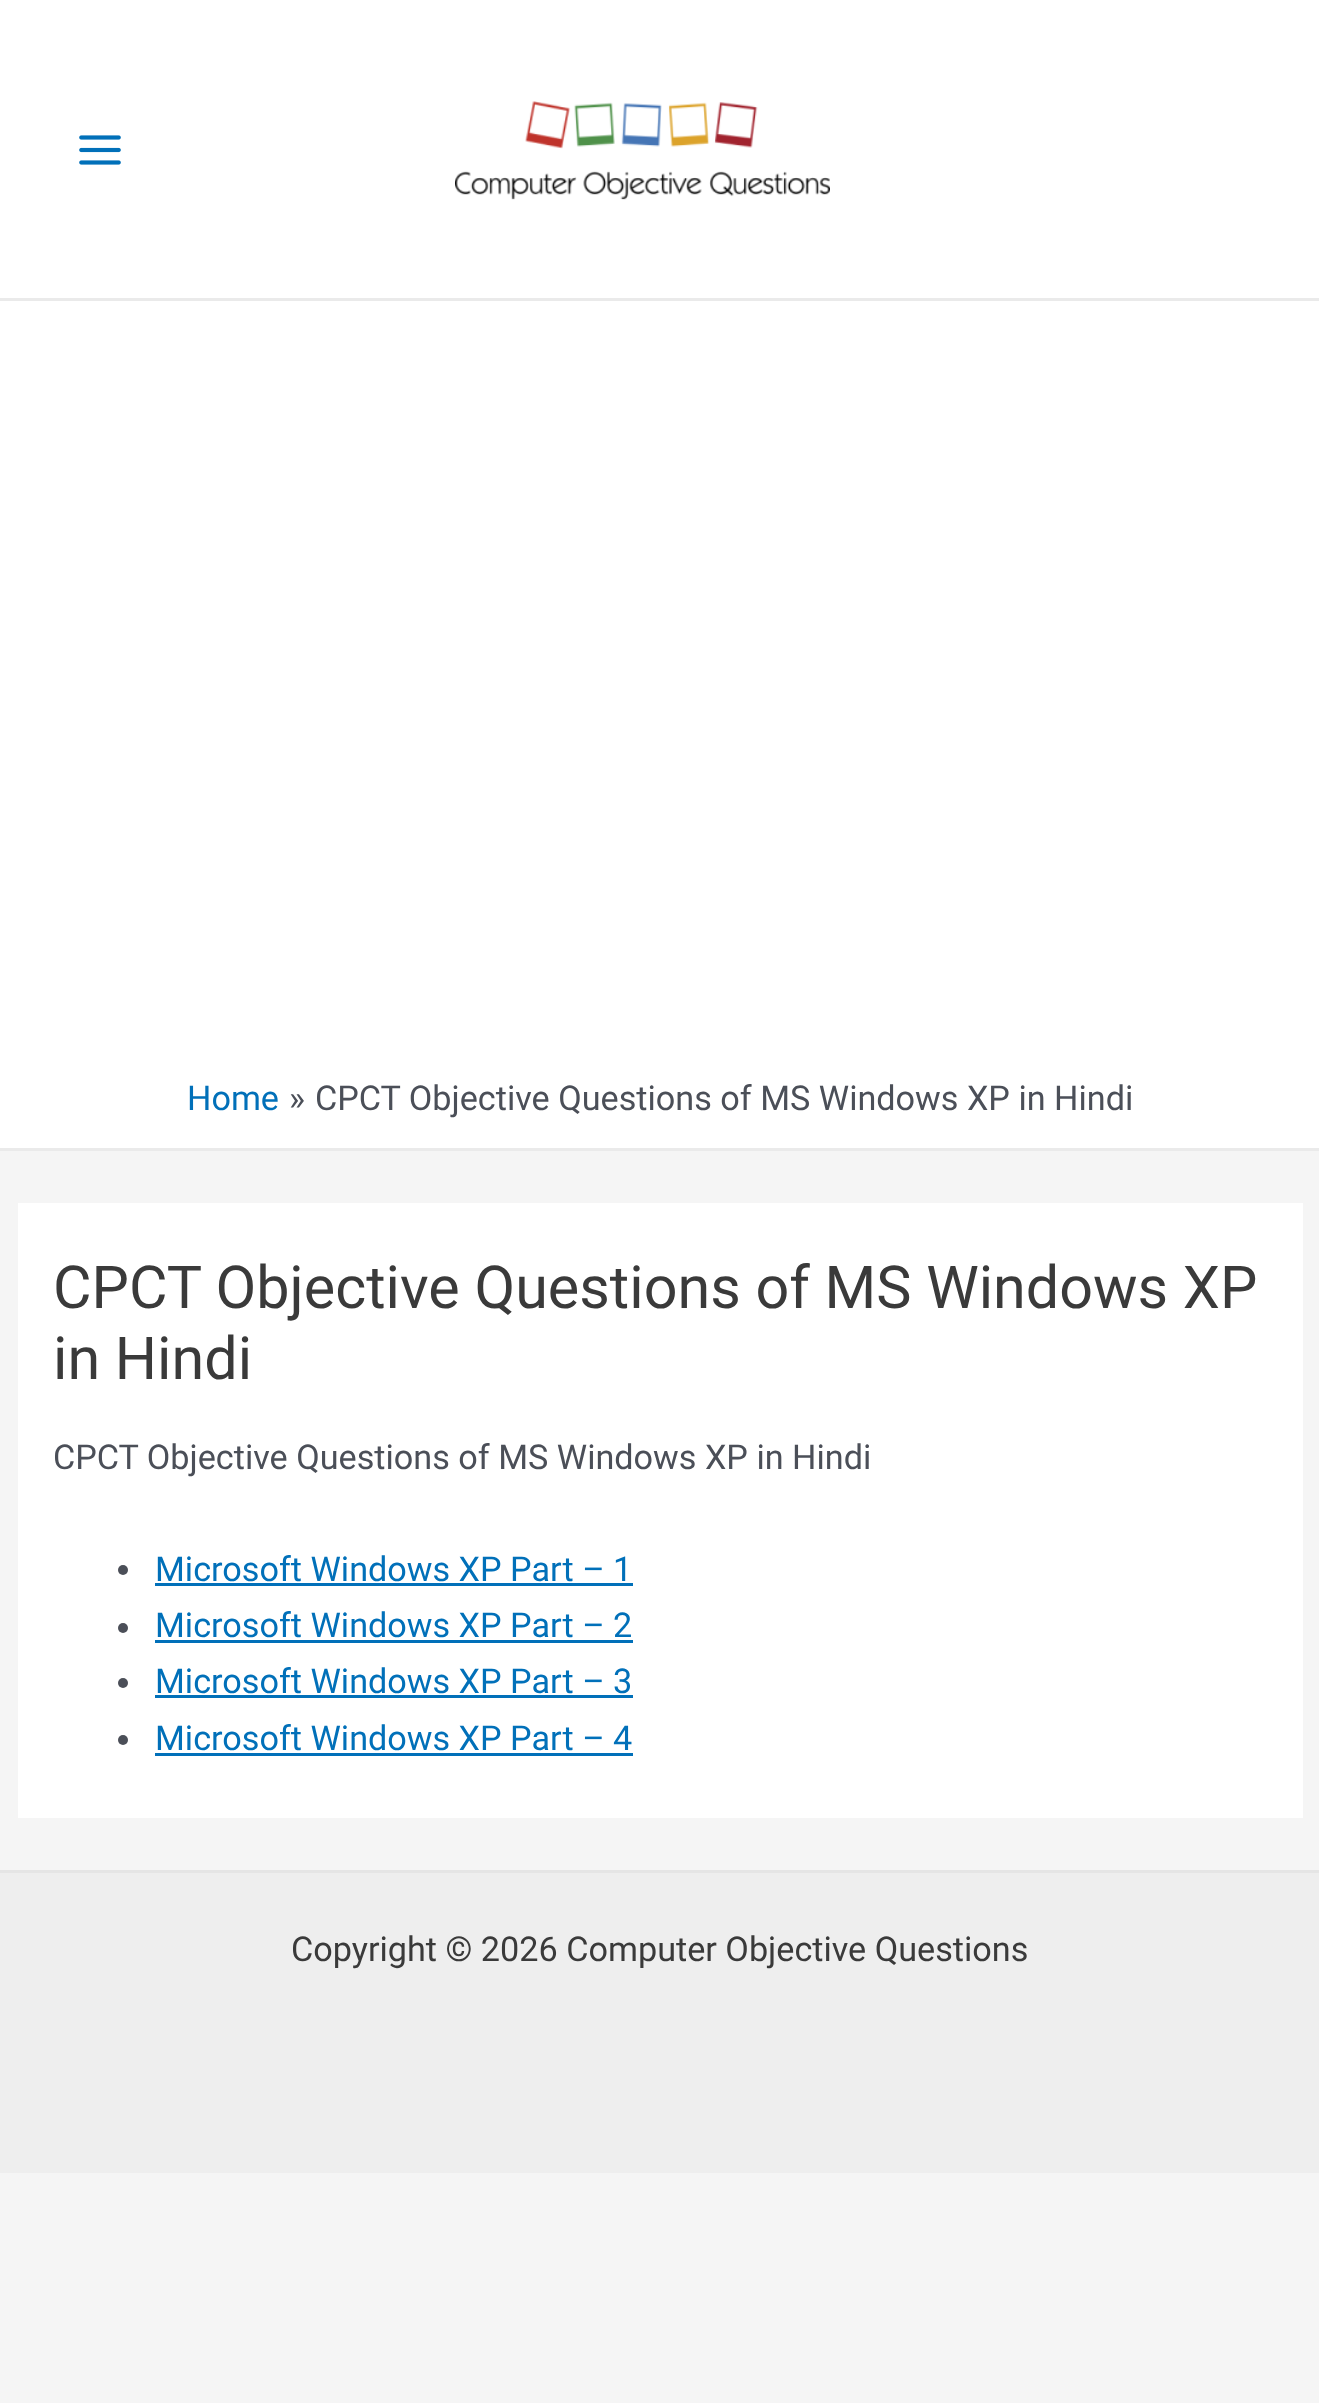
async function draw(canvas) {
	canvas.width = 1319;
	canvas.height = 2403;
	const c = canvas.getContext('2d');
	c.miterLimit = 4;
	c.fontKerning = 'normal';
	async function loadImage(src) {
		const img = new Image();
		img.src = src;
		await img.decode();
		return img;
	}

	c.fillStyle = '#f5f5f5';
	c.fillRect(0, 0, 1319, 2403);
	c.fillStyle = '#fff';
	c.fillRect(0, 0, 1319, 298);
	c.fillStyle = '#eaeaea';
	c.fillRect(0, 298, 1319, 3);
	c.drawImage(await loadImage('img1.png'), 79, 135, 42, 30);
	c.drawImage(await loadImage('img2.png'), 455, 101, 375, 99);
	c.fillStyle = '#fff';
	c.fillRect(0, 301, 1319, 847);
	c.fillStyle = '#eaeaea';
	c.fillRect(0, 1148, 1319, 3);
	c.font = '34.2px Roboto';
	c.fillStyle = '#0170b9';
	c.fillText('Home', 187, 1110);
	c.fillStyle = '#4b4f58';
	c.fillText('»', 289, 1110);
	c.fillText('CPCT Objective Questions of MS Windows XP in Hindi', 315, 1110);
	c.fillStyle = '#fff';
	c.fillRect(18, 1203, 1285, 615);
	c.font = '59.25px Roboto';
	c.fillStyle = '#3a3a3a';
	c.fillText('CPCT Objective Questions of MS Windows XP', 53, 1308);
	c.fillText('in Hindi', 53, 1379);
	c.font = '34.2px Roboto';
	c.fillStyle = '#4b4f58';
	c.fillText('CPCT Objective Questions of MS Windows XP in Hindi', 53, 1469);
	c.beginPath();
	c.arc(123, 1570, 5, 0, 2 * Math.PI);
	c.fill();
	c.fillStyle = '#0170b9';
	c.fillText('Microsoft Windows XP Part – 1', 155, 1581);
	c.fillRect(155, 1583, 478, 3);
	c.fillStyle = '#4b4f58';
	c.beginPath();
	c.arc(123, 1628, 5, 0, 2 * Math.PI);
	c.fill();
	c.fillStyle = '#0170b9';
	c.fillText('Microsoft Windows XP Part – 2', 155, 1637);
	c.fillRect(155, 1640, 478, 3);
	c.fillStyle = '#4b4f58';
	c.beginPath();
	c.arc(123, 1683, 5, 0, 2 * Math.PI);
	c.fill();
	c.fillStyle = '#0170b9';
	c.fillText('Microsoft Windows XP Part – 3', 155, 1693);
	c.fillRect(155, 1695, 478, 3);
	c.fillStyle = '#4b4f58';
	c.beginPath();
	c.arc(123, 1740, 5, 0, 2 * Math.PI);
	c.fill();
	c.fillStyle = '#0170b9';
	c.fillText('Microsoft Windows XP Part – 4', 155, 1750);
	for (const [x, y, w, h, color] of [
		[155, 1753, 478, 3, '#0170b9'],
		[0, 1873, 1319, 300, '#eee'],
		[0, 1870, 1319, 3, '#e5e5e5'],
	]) {
		c.fillStyle = color;
		c.fillRect(x, y, w, h);
	}
	c.fillStyle = '#3a3a3a';
	c.fillText('Copyright © 2026 Computer Objective Questions', 291, 1961);
}

draw(document.querySelector('canvas'));
